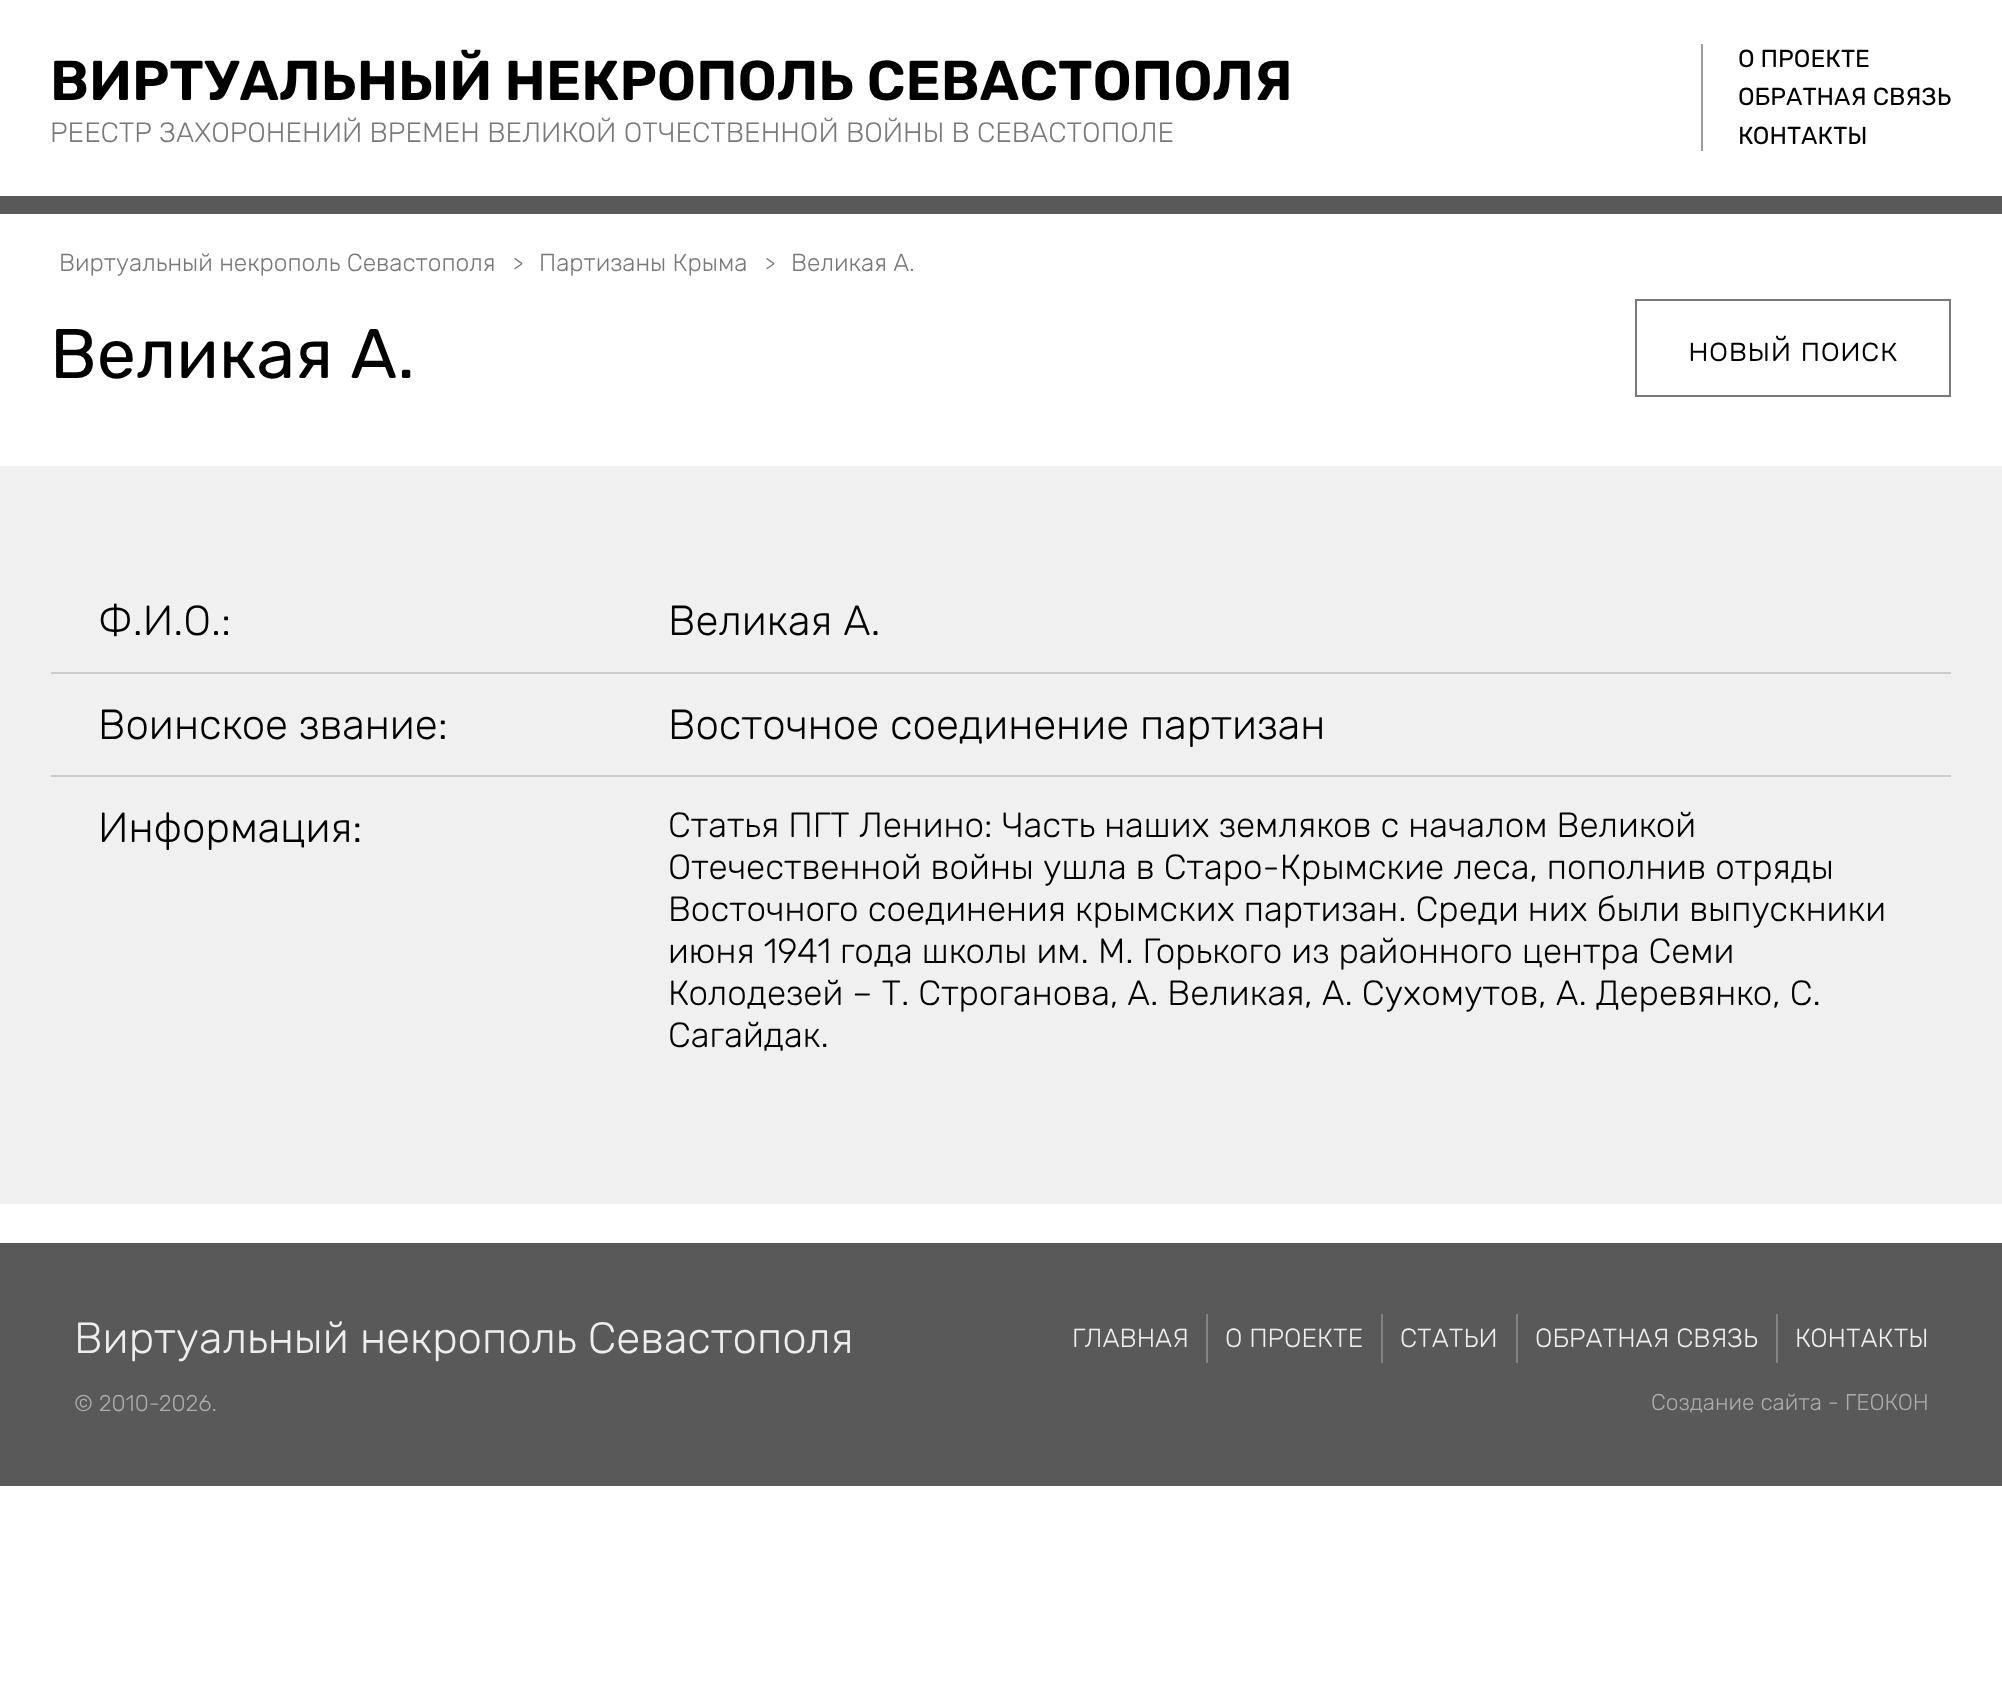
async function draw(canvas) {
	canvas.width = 2002;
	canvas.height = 1703;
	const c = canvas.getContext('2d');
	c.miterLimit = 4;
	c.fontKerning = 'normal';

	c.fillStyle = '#fff';
	c.fillRect(0, 0, 2002, 1703);
	c.font = '600 56px Rubik';
	c.fillStyle = '#000';
	c.fillText('ВИРТУАЛЬНЫЙ НЕКРОПОЛЬ СЕВАСТОПОЛЯ', 50, 100);
	c.font = '300 28px Rubik';
	c.fillStyle = '#797979';
	c.fillText('РЕЕСТР ЗАХОРОНЕНИЙ ВРЕМЕН ВЕЛИКОЙ ОТЧЕСТВЕННОЙ ВОЙНЫ В СЕВАСТОПОЛЕ', 50, 142);
	c.fillStyle = '#9b9b9b';
	c.fillRect(1701, 44, 2, 107);
	c.font = '24.5px Rubik';
	c.fillStyle = '#000';
	for (const [text, x, y] of [
		['О ПРОЕКТЕ', 1738, 67],
		['ОБРАТНАЯ СВЯЗЬ', 1738, 105],
		['КОНТАКТЫ', 1738, 144],
	]) {
		c.fillText(text, x, y);
	}
	c.fillStyle = '#595959';
	c.fillRect(0, 196, 2002, 18);
	c.font = '300 24.5px Rubik';
	c.fillStyle = '#797979';
	c.fillText('Виртуальный некрополь Севастополя', 59, 271);
	c.font = '300 21px Rubik';
	c.fillText('>', 513, 270);
	c.font = '300 24.5px Rubik';
	c.fillText('Партизаны Крыма', 539, 271);
	c.font = '300 21px Rubik';
	c.fillText('>', 765, 270);
	c.font = '300 24.5px Rubik';
	c.fillText('Великая А.', 791, 271);
	c.font = '70px Rubik';
	c.fillStyle = '#000';
	c.fillText('Великая А.', 50, 378);
	c.strokeStyle = '#797979';
	c.lineWidth = 2;
	c.strokeRect(1636, 300, 314, 96);
	c.font = '300 35px Rubik';
	c.fillText('новый поиск', 1688, 361);
	c.fillStyle = '#f0f0f0';
	c.fillRect(0, 466, 2002, 738);
	c.fillStyle = '#ccc';
	c.fillRect(51, 672, 1900, 2);
	c.font = '300 42px Rubik';
	c.fillStyle = '#000';
	c.fillText('Ф.И.О.:', 98, 635);
	c.fillText('Великая А.', 668, 635);
	c.fillStyle = '#ccc';
	c.fillRect(51, 775, 1900, 2);
	c.fillStyle = '#000';
	for (const [text, x, y] of [
		['Воинское звание:', 98, 739],
		['Восточное соединение партизан', 668, 739],
		['Информация:', 98, 842],
	]) {
		c.fillText(text, x, y);
	}
	c.font = '300 35px Rubik';
	for (const [text, x, y] of [
		['Статья ПГТ Ленино: Часть наших земляков с началом Великой', 668, 837],
		['Отечественной войны ушла в Старо-Крымские леса, пополнив отряды', 668, 879],
		['Восточного соединения крымских партизан. Среди них были выпускники', 668, 921],
		['июня 1941 года школы им. М. Горького из районного центра Семи', 668, 963],
		['Колодезей – Т. Строганова, А. Великая, А. Сухомутов, А. Деревянко, С.', 668, 1005],
		['Сагайдак.', 668, 1047],
	]) {
		c.fillText(text, x, y);
	}
	c.fillStyle = '#595959';
	c.fillRect(0, 1243, 2002, 243);
	c.font = '300 43.75px Rubik';
	c.fillStyle = '#eee';
	c.fillText('Виртуальный некрополь Севастополя', 74, 1353);
	c.font = '300 22.75px Rubik';
	c.fillStyle = '#acacac';
	c.fillText('© 2010-2026.', 74, 1411);
	c.font = '300 26.25px Rubik';
	c.fillStyle = '#eee';
	c.fillText('ГЛАВНАЯ', 1072, 1347);
	c.fillStyle = '#838383';
	c.fillRect(1206, 1314, 2, 49);
	c.fillStyle = '#eee';
	c.fillText('О ПРОЕКТЕ', 1225, 1347);
	c.fillStyle = '#838383';
	c.fillRect(1381, 1314, 2, 49);
	c.fillStyle = '#eee';
	c.fillText('СТАТЬИ', 1400, 1347);
	c.fillStyle = '#838383';
	c.fillRect(1516, 1314, 2, 49);
	c.fillStyle = '#eee';
	c.fillText('ОБРАТНАЯ СВЯЗЬ', 1535, 1347);
	c.fillStyle = '#838383';
	c.fillRect(1776, 1314, 2, 49);
	c.fillStyle = '#eee';
	c.fillText('КОНТАКТЫ', 1795, 1347);
	c.font = '300 22.75px Rubik';
	c.fillStyle = '#acacac';
	c.fillText('Создание сайта - ГЕОКОН', 1651, 1410);
}

draw(document.querySelector('canvas'));
